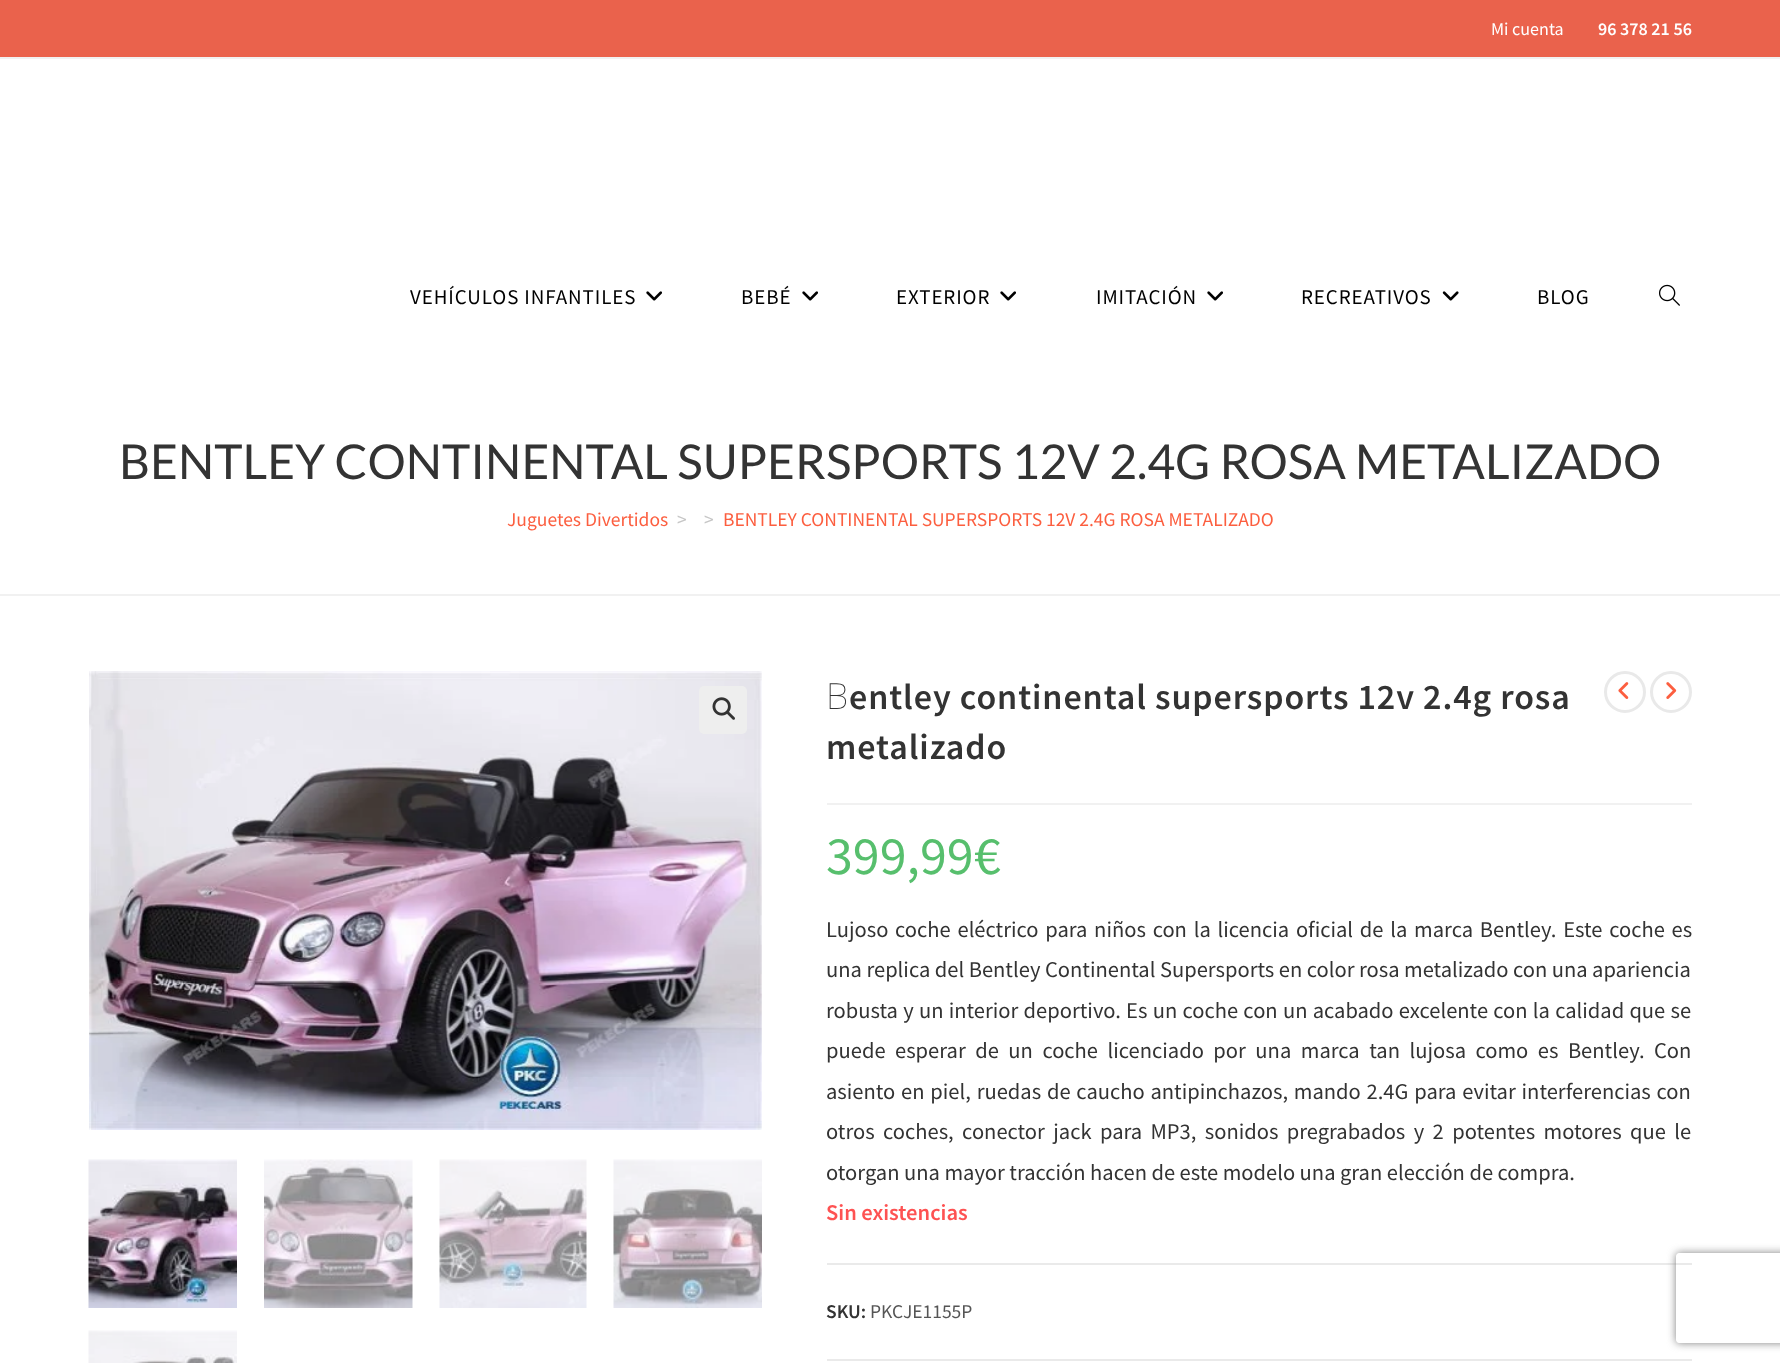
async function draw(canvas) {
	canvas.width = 1780;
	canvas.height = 1363;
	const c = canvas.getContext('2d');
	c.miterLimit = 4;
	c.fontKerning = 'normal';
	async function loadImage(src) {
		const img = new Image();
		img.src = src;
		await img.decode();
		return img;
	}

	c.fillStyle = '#fff';
	c.fillRect(0, 0, 1780, 1363);
	c.fillStyle = '#ea624c';
	c.fillRect(0, 0, 1780, 57);
	c.fillStyle = '#f1f1f1';
	c.fillRect(0, 57, 1780, 2);
	c.font = '18px Source Sans Pro';
	c.fillStyle = '#fff';
	c.fillText('Mi cuenta', 1491, 35);
	c.font = '600 18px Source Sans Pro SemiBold';
	c.fillText('96 378 21 56', 1598, 35);
	c.letterSpacing = '0.9px';
	c.font = '21px Source Sans Pro';
	c.fillStyle = '#000';
	c.fillText('VEHÍCULOS INFANTILES', 410, 304);
	c.drawImage(await loadImage('img1.png'), 646, 291, 16, 10);
	c.fillText('BEBÉ', 741, 304);
	c.drawImage(await loadImage('img1.png'), 802, 291, 16, 10);
	c.fillText('EXTERIOR', 896, 304);
	c.drawImage(await loadImage('img1.png'), 1000, 291, 16, 10);
	c.fillText('IMITACIÓN', 1096, 304);
	c.drawImage(await loadImage('img1.png'), 1207, 291, 16, 10);
	c.fillText('RECREATIVOS', 1301, 304);
	c.drawImage(await loadImage('img2.png'), 1442, 291, 17, 10);
	c.fillText('BLOG', 1537, 304);
	c.drawImage(await loadImage('img3.png'), 1659, 284, 21, 22);
	c.fillStyle = '#f1f1f1';
	c.fillRect(0, 594, 1780, 2);
	c.letterSpacing = '0px';
	c.font = '48px Lato';
	c.fillStyle = '#333';
	c.fillText('BENTLEY CONTINENTAL SUPERSPORTS 12V 2.4G ROSA METALIZADO', 119, 479);
	c.font = '19.5px Source Sans Pro';
	c.fillStyle = '#fc5e3f';
	c.fillText('Juguetes Divertidos', 507, 526);
	c.fillStyle = '#c6c6c6';
	c.fillText('>', 677, 526);
	c.fillText('>', 704, 526);
	c.fillStyle = '#fc5e3f';
	c.fillText('BENTLEY CONTINENTAL SUPERSPORTS 12V 2.4G ROSA METALIZADO', 723, 526);
	c.drawImage(await loadImage('img4.png'), 89, 671, 673, 459);
	c.fillStyle = '#eee';
	c.beginPath();
	c.roundRect(699, 686, 48, 48, 5);
	c.fill();
	c.drawImage(await loadImage('img5.png'), 712, 697, 23, 23);
	c.drawImage(await loadImage('img6.png'), 88, 1159, 149, 149);
	c.drawImage(await loadImage('img7.png'), 264, 1159, 149, 149);
	c.drawImage(await loadImage('img8.png'), 439, 1159, 148, 149);
	c.drawImage(await loadImage('img9.png'), 613, 1159, 149, 149);
	c.drawImage(await loadImage('img10.png'), 88, 1330, 149, 33);
	c.beginPath();
	c.arc(1625, 692, 19.5, 0, 2 * Math.PI);
	c.strokeStyle = '#e9e9e9';
	c.lineWidth = 3;
	c.stroke();
	c.drawImage(await loadImage('img11.png'), 1618, 682, 11, 17);
	c.beginPath();
	c.arc(1671, 692, 19.5, 0, 2 * Math.PI);
	c.stroke();
	c.drawImage(await loadImage('img12.png'), 1666, 682, 11, 17);
	c.fillStyle = '#f1f1f1';
	c.fillRect(827, 803, 865, 2);
	c.letterSpacing = '0.9px';
	c.font = '100 36px Noto Sans';
	c.fillStyle = '#333';
	c.fillText('B', 826, 709);
	c.font = '600 36px Source Sans Pro SemiBold';
	c.fillText('entley continental supersports 12v 2.4g rosa', 849, 709);
	c.fillText('metalizado', 826, 759);
	c.letterSpacing = '0px';
	c.font = '54px Source Sans Pro';
	c.fillStyle = '#57bf6d';
	c.fillText('399,99€', 826, 874);
	c.wordSpacing = '2.25px';
	c.font = '22.5px Source Sans Pro';
	c.fillStyle = '#333';
	c.fillText('Lujoso coche eléctrico para niños con la licencia oficial de la marca Bentley. Este coche es', 826, 937);
	c.wordSpacing = '0px';
	c.fillText('una replica del Bentley Continental Supersports en color rosa metalizado con una apariencia', 826, 977);
	c.wordSpacing = '0.75px';
	c.fillText('robusta y un interior deportivo. Es un coche con un acabado excelente con la calidad que se', 826, 1018);
	c.wordSpacing = '5px';
	c.fillText('puede esperar de un coche licenciado por una marca tan lujosa como es Bentley. Con', 826, 1058);
	c.wordSpacing = '1.3px';
	c.fillText('asiento en piel, ruedas de caucho antipinchazos, mando 2.4G para evitar interferencias con', 826, 1099);
	c.wordSpacing = '3.9px';
	c.fillText('otros coches, conector jack para MP3, sonidos pregrabados y 2 potentes motores que le', 826, 1139);
	c.wordSpacing = '0px';
	c.fillText('otorgan una mayor tracción hacen de este modelo una gran elección de compra.', 826, 1180);
	c.font = '600 22.5px Source Sans Pro SemiBold';
	c.fillStyle = '#fe5252';
	c.fillText('Sin existencias', 826, 1220);
	c.fillStyle = '#eaeaea';
	c.fillRect(827, 1263, 865, 2);
	c.fillRect(827, 1359, 865, 2);
	c.font = '600 19.5px Source Sans Pro SemiBold';
	c.fillStyle = '#333';
	c.fillText('SKU:', 826, 1318);
	c.font = '19.5px Source Sans Pro';
	c.fillStyle = '#555';
	c.fillText('PKCJE1155P', 870, 1318);
	c.save();
	c.beginPath();
	c.moveTo(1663, 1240);
	c.lineTo(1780, 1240);
	c.lineTo(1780, 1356);
	c.lineTo(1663, 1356);
	c.closePath();
	c.moveTo(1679, 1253);
	c.lineTo(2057, 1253);
	c.bezierCurveTo(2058.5, 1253, 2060, 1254.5, 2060, 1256);
	c.lineTo(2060, 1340);
	c.bezierCurveTo(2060, 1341.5, 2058.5, 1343, 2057, 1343);
	c.lineTo(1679, 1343);
	c.bezierCurveTo(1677.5, 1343, 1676, 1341.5, 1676, 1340);
	c.lineTo(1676, 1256);
	c.bezierCurveTo(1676, 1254.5, 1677.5, 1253, 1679, 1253);
	c.closePath();
	c.clip('evenodd');
	c.fillStyle = '#808080';
	c.filter = 'blur(4px)';
	c.beginPath();
	c.roundRect(1676, 1253, 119, 90, 3);
	c.fill();
	c.filter = 'none';
	c.restore();
}

draw(document.querySelector('canvas'));
